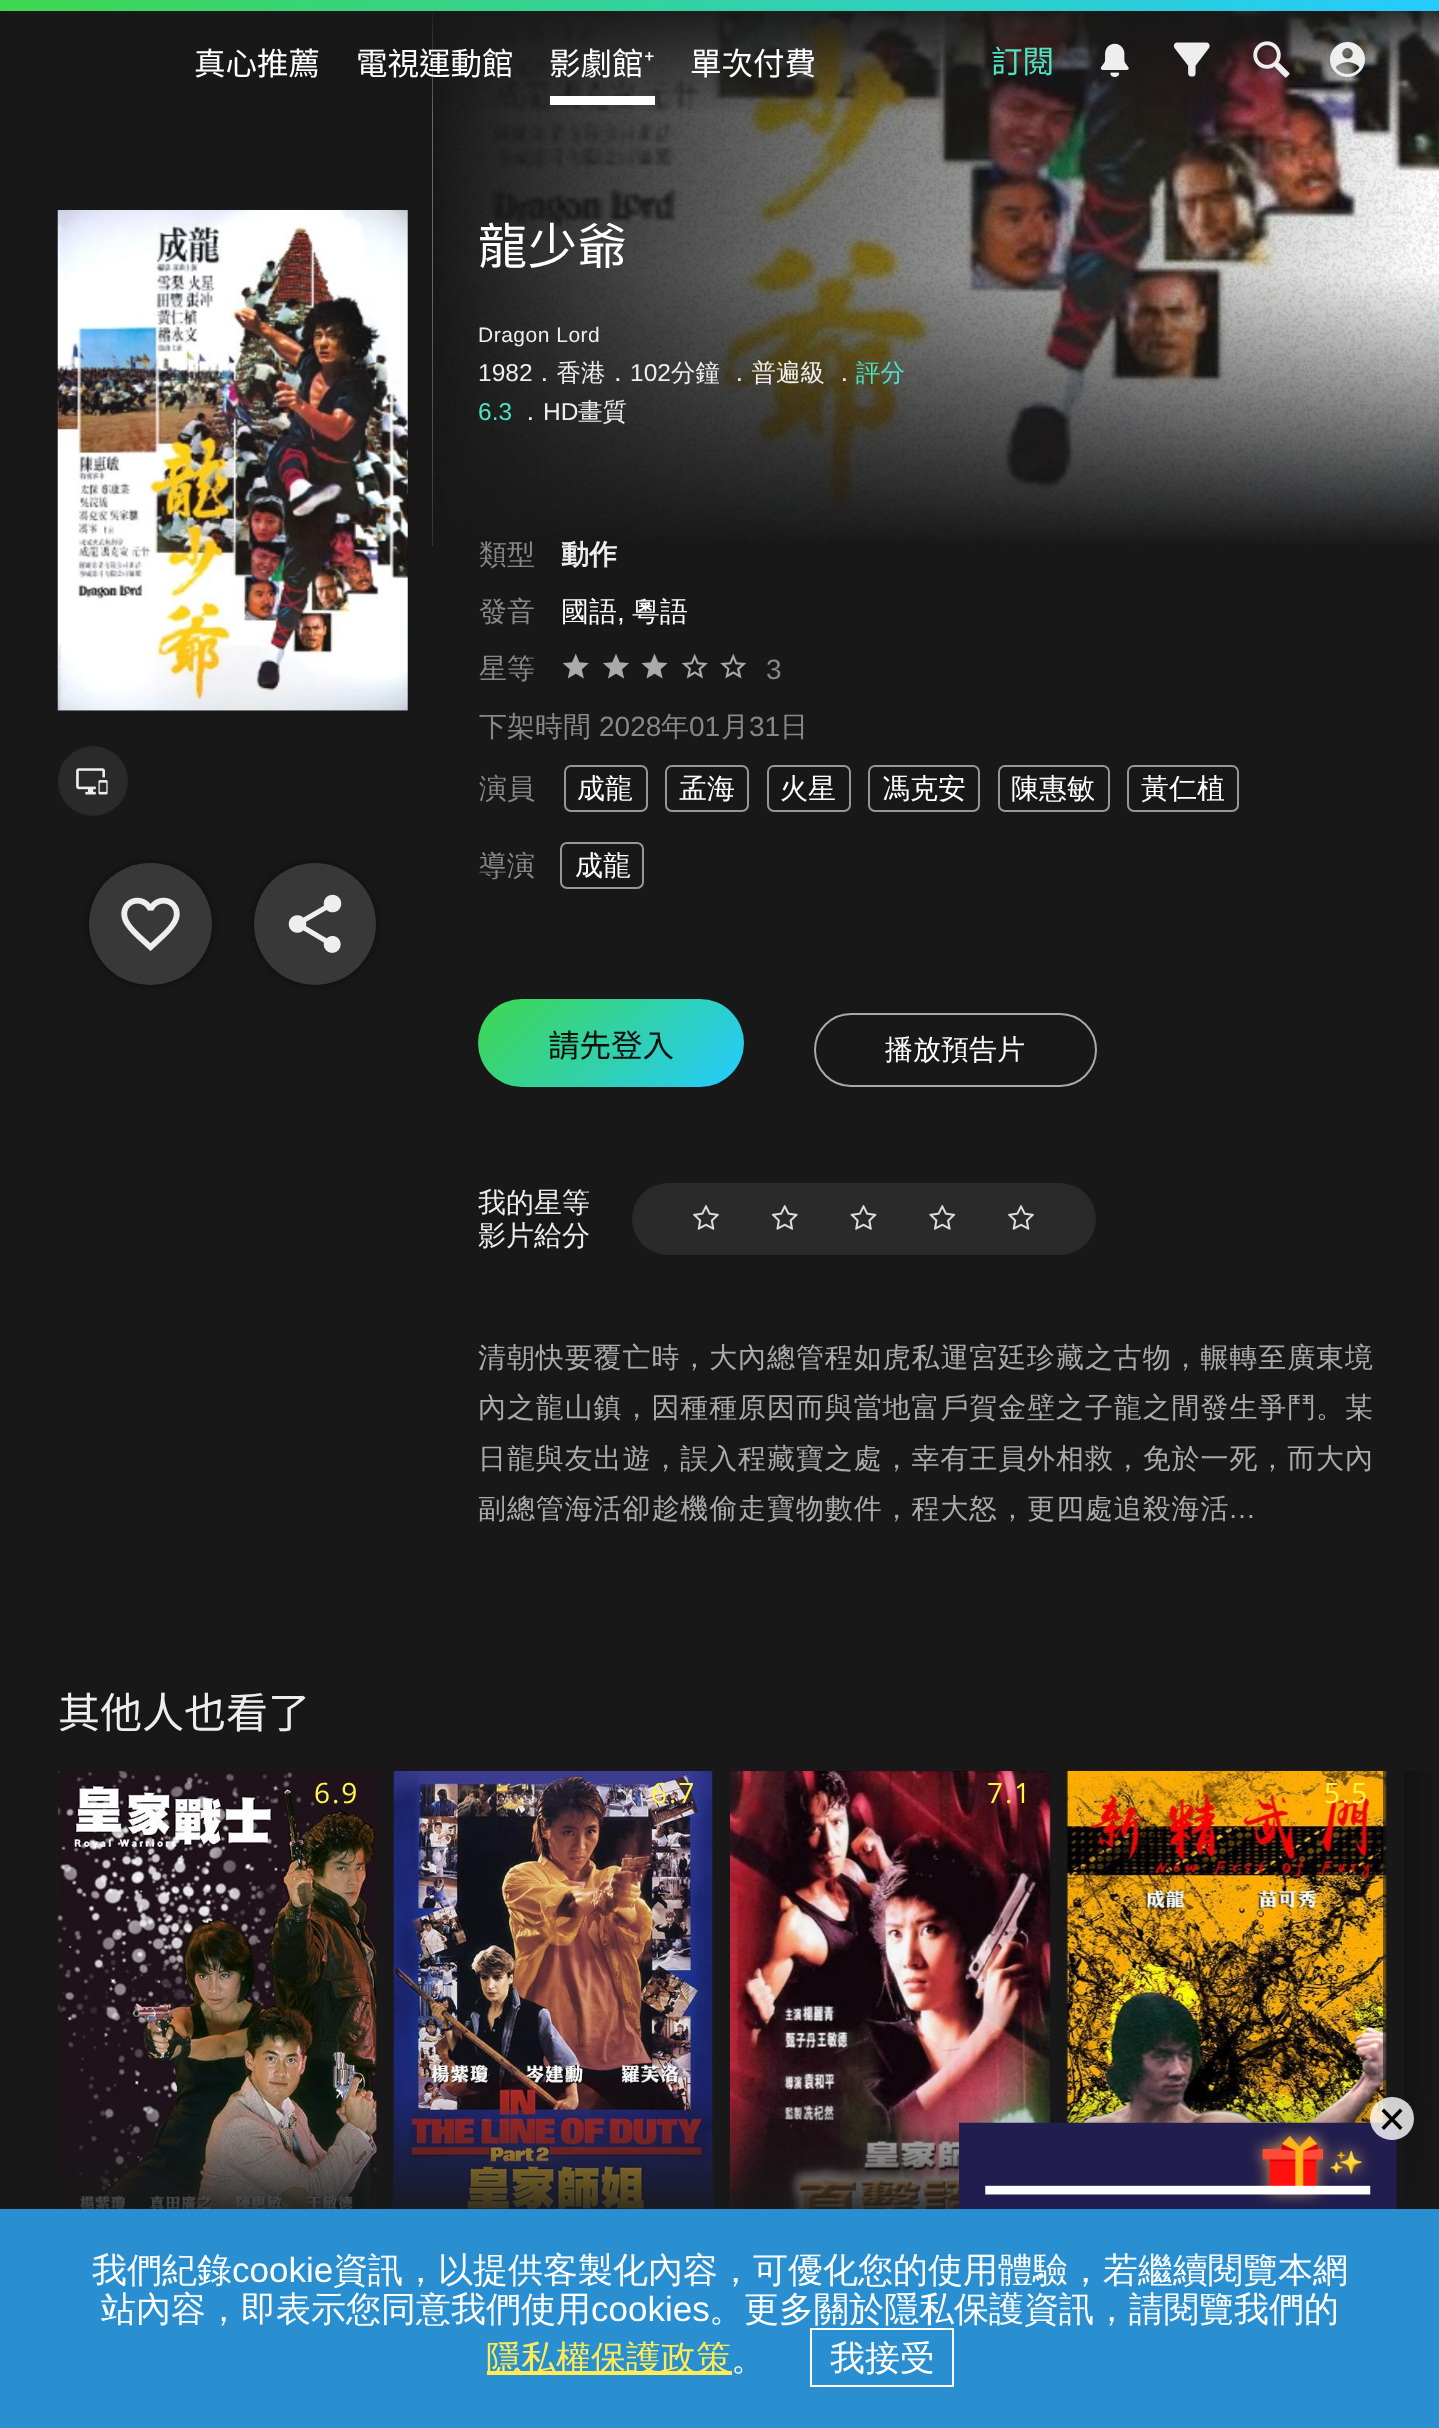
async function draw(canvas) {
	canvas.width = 1439;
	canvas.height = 2428;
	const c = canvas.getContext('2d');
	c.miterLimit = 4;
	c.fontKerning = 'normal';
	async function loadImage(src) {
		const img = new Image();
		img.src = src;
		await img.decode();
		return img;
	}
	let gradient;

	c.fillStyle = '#181818';
	c.fillRect(0, 0, 1439, 2428);
	c.drawImage(await loadImage('img5.png'), 432, 11, 1007, 535);
	c.drawImage(await loadImage('img6.png'), 432, 11, 1007, 535);
	gradient = c.createLinearGradient(720, 0, 720, 116);
	gradient.addColorStop(0, '#181818');
	gradient.addColorStop(1, '#18181800');
	c.fillStyle = gradient;
	c.fillRect(432, 11, 1007, 102);
	gradient = c.createLinearGradient(354, -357, 1086, 368);
	gradient.addColorStop(0, '#3fd750');
	gradient.addColorStop(1, '#24cbff');
	c.fillStyle = gradient;
	c.fillRect(0, 0, 1439, 11);
	c.font = '100 31.5px Noto Sans TC';
	c.fillStyle = '#fff';
	c.fillText('真心推薦', 194, 75);
	c.fillText('電視運動館', 356, 75);
	c.fillRect(550, 96, 105, 9);
	c.fillText('影劇館', 549, 75);
	c.font = '31.5px Noto Sans';
	c.fillText('⁺', 644, 75);
	c.font = '100 31.5px Noto Sans TC';
	c.fillText('單次付費', 690, 75);
	c.fillStyle = '#50e3c2';
	c.fillText('訂閱', 991, 73);
	c.drawImage(await loadImage('img1.png'), 1100, 43, 29, 34);
	c.drawImage(await loadImage('img2.png'), 1173, 42, 37, 35);
	c.drawImage(await loadImage('img3.png'), 1253, 41, 37, 37);
	c.drawImage(await loadImage('img4.png'), 1330, 42, 35, 35);
	c.fillStyle = '#000';
	c.fillRect(58, 210, 350, 501);
	c.drawImage(await loadImage('img7.png'), 57, 210, 351, 501);
	c.fillStyle = '#2a2a2a';
	c.beginPath();
	c.arc(93, 781, 35, 0, 2 * Math.PI);
	c.fill();
	c.drawImage(await loadImage('img8.png'), 76, 768, 32, 27);
	c.fillStyle = '#00000080';
	c.filter = 'blur(4.5px)';
	c.beginPath();
	c.roundRect(89, 863, 123, 122, 61);
	c.fill();
	c.filter = 'none';
	c.fillStyle = '#383838';
	c.beginPath();
	c.roundRect(89, 863, 123, 122, 61);
	c.fill();
	c.drawImage(await loadImage('img9.png'), 121, 897, 59, 54);
	c.fillStyle = '#00000080';
	c.filter = 'blur(4.5px)';
	c.beginPath();
	c.roundRect(254, 863, 122, 122, 61);
	c.fill();
	c.filter = 'none';
	c.fillStyle = '#383838';
	c.beginPath();
	c.arc(315, 924, 61, 0, 2 * Math.PI);
	c.fill();
	c.drawImage(await loadImage('img10.png'), 288, 894, 54, 59);
	c.letterSpacing = '0.9px';
	c.font = '100 49px Noto Sans TC';
	c.fillStyle = '#fff';
	c.fillText('龍少爺', 478, 264);
	c.letterSpacing = '0.5px';
	c.font = '21px Liberation Sans';
	c.fillStyle = '#eee';
	c.fillText('Dragon Lord', 478, 342);
	c.letterSpacing = '0px';
	c.font = '24.5px Liberation Sans';
	c.fillText('1982', 478, 381);
	c.font = '500 24.5px WenQuanYi Zen Hei';
	c.fillText('．香港．', 532, 381);
	c.font = '24.5px Liberation Sans';
	c.fillText('102', 630, 381);
	c.font = '500 24.5px WenQuanYi Zen Hei';
	for (const [text, x, y] of [
		['分鐘', 671, 381],
		['．普遍級', 727, 381],
		['．', 832, 381],
	]) {
		c.fillText(text, x, y);
	}
	c.fillStyle = '#50e3c2';
	c.fillText('評分', 856, 381);
	c.font = '24.5px Liberation Sans';
	c.fillText('6.3', 478, 420);
	c.font = '500 24.5px WenQuanYi Zen Hei';
	c.fillStyle = '#eee';
	c.fillText('．', 518, 420);
	c.font = '24.5px Liberation Sans';
	c.fillText('HD', 543, 420);
	c.font = '500 24.5px WenQuanYi Zen Hei';
	c.fillText('畫質', 578, 420);
	c.font = '500 28px WenQuanYi Zen Hei';
	c.fillStyle = '#888';
	c.fillText('類型', 479, 564);
	c.font = 'bold 28px WenQuanYi Zen Hei';
	c.fillStyle = '#eee';
	c.fillText('動作', 561, 564);
	c.font = '500 28px WenQuanYi Zen Hei';
	c.fillStyle = '#888';
	c.fillText('發音', 479, 621);
	c.fillStyle = '#fff';
	c.fillText('國語', 561, 621);
	c.font = '28px Liberation Sans';
	c.fillText(',', 617, 621);
	c.font = '500 28px WenQuanYi Zen Hei';
	c.fillText('粵語', 632, 621);
	c.fillStyle = '#888';
	c.fillText('星等', 479, 678);
	c.drawImage(await loadImage('img11.png'), 562, 653, 27, 26);
	c.drawImage(await loadImage('img12.png'), 603, 653, 26, 26);
	c.drawImage(await loadImage('img13.png'), 641, 653, 27, 26);
	c.drawImage(await loadImage('img14.png'), 681, 653, 27, 26);
	c.drawImage(await loadImage('img15.png'), 720, 653, 27, 26);
	c.font = '28px Liberation Sans';
	c.fillText('3', 766, 679);
	c.font = '500 28px WenQuanYi Zen Hei';
	c.fillText('下架時間', 479, 736);
	c.font = '28px Liberation Sans';
	c.fillText('2028', 599, 736);
	c.font = '500 28px WenQuanYi Zen Hei';
	c.fillText('年', 661, 736);
	c.font = '28px Liberation Sans';
	c.fillText('01', 689, 736);
	c.font = '500 28px WenQuanYi Zen Hei';
	c.fillText('月', 721, 736);
	c.font = '28px Liberation Sans';
	c.fillText('31', 749, 736);
	c.font = '500 28px WenQuanYi Zen Hei';
	c.fillText('日', 780, 736);
	c.fillText('演員', 479, 798);
	c.beginPath();
	c.roundRect(565, 766, 82, 45, 6);
	c.strokeStyle = '#979797';
	c.lineWidth = 2;
	c.stroke();
	c.fillStyle = '#fff';
	c.fillText('成龍', 577, 798);
	c.beginPath();
	c.roundRect(666, 766, 82, 45, 6);
	c.stroke();
	c.fillText('孟海', 679, 798);
	c.beginPath();
	c.roundRect(768, 766, 82, 45, 6);
	c.stroke();
	c.fillText('火星', 780, 798);
	c.beginPath();
	c.roundRect(869, 766, 110, 45, 6);
	c.stroke();
	c.fillText('馮克安', 882, 798);
	c.beginPath();
	c.roundRect(999, 766, 110, 45, 6);
	c.stroke();
	c.fillText('陳惠敏', 1011, 798);
	c.beginPath();
	c.roundRect(1128, 766, 110, 45, 6);
	c.stroke();
	c.fillText('黃仁植', 1141, 798);
	c.fillStyle = '#888';
	c.fillText('導演', 479, 875);
	c.beginPath();
	c.roundRect(561, 843, 82, 45, 6);
	c.stroke();
	c.fillStyle = '#fff';
	c.fillText('成龍', 575, 875);
	gradient = c.createLinearGradient(522, 955, 700, 1131);
	gradient.addColorStop(0, '#3fd750');
	gradient.addColorStop(1, '#24cbff');
	c.fillStyle = gradient;
	c.beginPath();
	c.roundRect(478, 999, 266, 88, 44);
	c.fill();
	c.font = '100 31.5px Noto Sans TC';
	c.fillStyle = '#111';
	c.fillText('請先登入', 548, 1057);
	c.beginPath();
	c.roundRect(815, 1014, 281, 72, 36);
	c.strokeStyle = '#aaa';
	c.stroke();
	c.font = '500 28px WenQuanYi Zen Hei';
	c.fillStyle = '#fff';
	c.fillText('播放預告片', 885, 1059);
	c.fillStyle = '#eee';
	c.fillText('我的星等', 478, 1212);
	c.fillText('影片給分', 478, 1245);
	c.fillStyle = '#2a2a2a';
	c.beginPath();
	c.roundRect(632, 1183, 464, 72, 36);
	c.fill();
	c.drawImage(await loadImage('img16.png'), 693, 1205, 26, 25);
	c.drawImage(await loadImage('img17.png'), 771, 1205, 27, 25);
	c.drawImage(await loadImage('img18.png'), 850, 1205, 27, 25);
	c.drawImage(await loadImage('img19.png'), 929, 1205, 27, 25);
	c.drawImage(await loadImage('img16.png'), 1008, 1205, 26, 25);
	c.letterSpacing = '0.9px';
	c.fillStyle = '#aaa';
	for (const [text, x, y] of [
		['清朝快要覆亡時，大內總管程如虎私運宮廷珍藏之古物，輾轉至廣東境', 478, 1367],
		['內之龍山鎮，因種種原因而與當地富戶賀金壁之子龍之間發生爭鬥。某', 478, 1417],
		['日龍與友出遊，誤入程藏寶之處，幸有王員外相救，免於一死，而大內', 478, 1468],
		['副總管海活卻趁機偷走寶物數件，程大怒，更四處追殺海活', 478, 1518],
	]) {
		c.fillText(text, x, y);
	}
	c.font = '28px Liberation Sans';
	c.fillText('…', 1228, 1518);
	c.letterSpacing = '0px';
	c.font = '100 42px Noto Sans TC';
	c.fillStyle = '#eee';
	c.fillText('其他人也看了', 58, 1728);
	c.drawImage(await loadImage('img20.png'), 57, 1771, 320, 438);
	gradient = c.createLinearGradient(58, 2023, 0, 2023);
	gradient.addColorStop(0, '#18181899');
	gradient.addColorStop(1, '#181818');
	c.fillStyle = gradient;
	c.fillRect(57, 1771, 1, 240);
	c.letterSpacing = '2px';
	c.font = '28px Open Sans';
	c.fillStyle = '#fff646';
	c.fillText('6.9', 314, 1803);
	gradient = c.createLinearGradient(217, 1771, 217, 2228);
	gradient.addColorStop(0.7, '#18181800');
	gradient.addColorStop(1, '#181818');
	c.fillStyle = gradient;
	c.fillRect(58, 2094, 318, 115);
	c.drawImage(await loadImage('img21.png'), 393, 1771, 320, 438);
	c.fillStyle = '#fff646';
	c.fillText('6.7', 651, 1803);
	gradient = c.createLinearGradient(553, 1771, 553, 2228);
	gradient.addColorStop(0.7, '#18181800');
	gradient.addColorStop(1, '#181818');
	c.fillStyle = gradient;
	c.fillRect(394, 2094, 318, 115);
	c.drawImage(await loadImage('img22.png'), 730, 1771, 321, 438);
	c.fillStyle = '#fff646';
	c.fillText('7.1', 987, 1803);
	gradient = c.createLinearGradient(890, 1771, 890, 2228);
	gradient.addColorStop(0.7, '#18181800');
	gradient.addColorStop(1, '#181818');
	c.fillStyle = gradient;
	c.fillRect(730, 2094, 320, 115);
	c.drawImage(await loadImage('img23.png'), 1066, 1771, 321, 352);
	c.fillStyle = '#fff646';
	c.fillText('5.5', 1324, 1803);
	gradient = c.createLinearGradient(1227, 1771, 1227, 2228);
	gradient.addColorStop(0.7, '#18181800');
	gradient.addColorStop(1, '#181818');
	c.fillStyle = gradient;
	c.fillRect(1068, 2094, 318, 29);
	gradient = c.createLinearGradient(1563, 1771, 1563, 2228);
	gradient.addColorStop(0.7, '#000');
	gradient.addColorStop(1, '#181818');
	c.fillStyle = gradient;
	c.fillRect(1404, 1771, 35, 438);
	gradient = c.createLinearGradient(1383, 2023, 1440, 2023);
	gradient.addColorStop(0, '#18181899');
	gradient.addColorStop(1, '#181818');
	c.fillStyle = gradient;
	c.fillRect(1383, 1771, 56, 438);
	c.drawImage(await loadImage('img24.png'), 959, 2122, 438, 87);
	c.fillStyle = '#ffffffcc';
	c.beginPath();
	c.roundRect(1370, 2097, 44, 43, 21.5);
	c.fill();
	c.fillStyle = '#000';
	c.beginPath();
	c.moveTo(1381.5, 2127.5);
	c.lineTo(1400, 2108.5);
	c.lineTo(1402.5, 2111);
	c.lineTo(1384, 2130);
	c.closePath();
	c.fill();
	c.beginPath();
	c.moveTo(1384, 2108.5);
	c.lineTo(1402.5, 2127.5);
	c.lineTo(1400, 2130);
	c.lineTo(1381.5, 2111);
	c.closePath();
	c.fill();
	c.fillStyle = '#298fd1';
	c.fillRect(0, 2209, 1439, 219);
	c.letterSpacing = '0px';
	c.font = '500 35px WenQuanYi Zen Hei';
	c.fillStyle = '#fff';
	c.fillText('我們紀錄', 92, 2282);
	c.font = '35px Liberation Sans';
	c.fillText('cookie', 232, 2282);
	c.font = '500 35px WenQuanYi Zen Hei';
	c.fillText('資訊，以提供客製化內容，可優化您的使用體驗，若繼續閱覽本網', 333, 2282);
	c.fillText('站內容，即表示您同意我們使用', 101, 2321);
	c.font = '35px Liberation Sans';
	c.fillText('cookies', 591, 2321);
	c.font = '500 35px WenQuanYi Zen Hei';
	c.fillText('。更多關於隱私保護資訊，請閱覽我們的', 709, 2321);
	c.fillStyle = '#fdec57';
	c.fillRect(487, 2371, 245, 4);
	c.fillText('隱私權保護政策', 486, 2370);
	c.fillStyle = '#fff';
	c.fillText('。', 731, 2370);
	c.strokeStyle = '#fff';
	c.strokeRect(811, 2329, 142, 57);
	c.fillText('我接受', 830, 2370);
}

draw(document.querySelector('canvas'));
